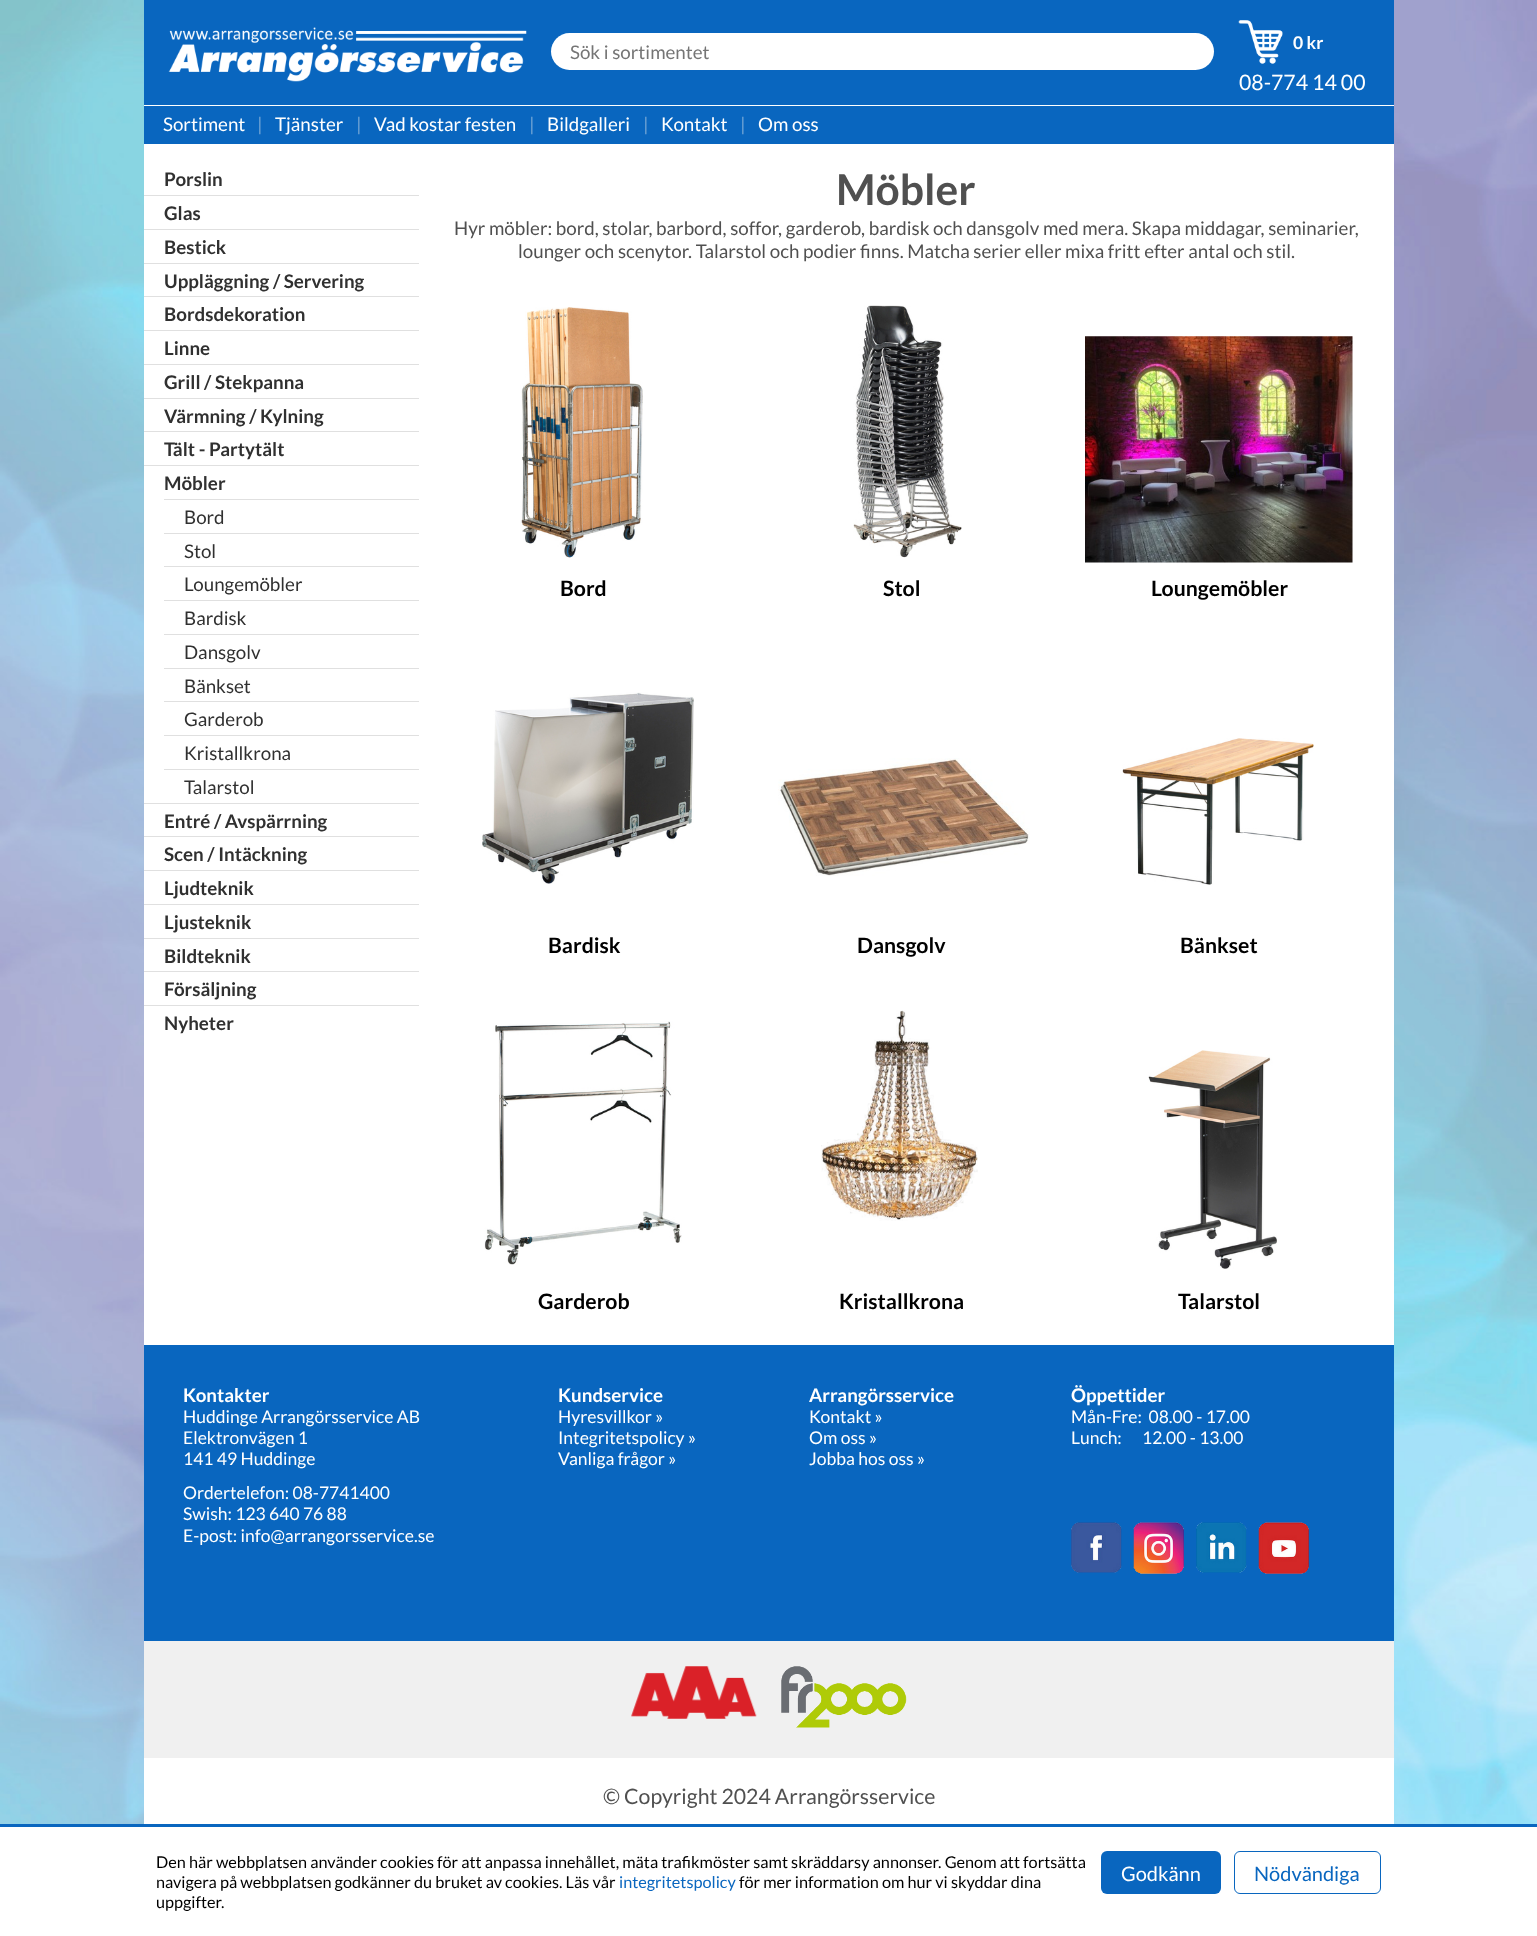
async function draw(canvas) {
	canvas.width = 1537;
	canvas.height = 1936;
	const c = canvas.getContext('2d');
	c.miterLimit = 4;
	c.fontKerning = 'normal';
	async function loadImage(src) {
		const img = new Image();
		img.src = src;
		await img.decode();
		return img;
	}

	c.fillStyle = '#fff';
	c.fillRect(0, 0, 1537, 1936);
	c.drawImage(await loadImage('img1.png'), 0, 0, 1537, 1824);
	c.fillRect(144, 105, 1250, 1719);
	c.fillStyle = '#0966bf';
	c.fillRect(144, 0, 1250, 105);
	c.drawImage(await loadImage('img2.png'), 168, 27, 359, 55);
	c.fillStyle = '#fff';
	c.beginPath();
	c.roundRect(551, 33, 663, 37, 18.5);
	c.fill();
	c.font = '18.75px Lato';
	c.fillStyle = '#757575';
	c.fillText('Sök i sortimentet', 570, 59);
	c.drawImage(await loadImage('img3.png'), 1238, 20, 45, 44);
	c.font = 'bold 17.5px Lato';
	c.fillStyle = '#fff';
	c.fillText('0 kr', 1293, 49);
	c.font = '21.25px Lato';
	c.fillText('08-774 14 00', 1239, 90);
	c.fillStyle = '#0966bf';
	c.fillRect(144, 106, 1250, 38);
	c.font = '18.75px Lato';
	c.fillStyle = '#fff';
	c.fillText('Sortiment', 163, 131);
	c.fillStyle = '#6fa3d4';
	c.fillText('|', 257, 131);
	c.fillStyle = '#fff';
	c.fillText('Tjänster', 275, 131);
	c.fillStyle = '#6fa3d4';
	c.fillText('|', 356, 131);
	c.fillStyle = '#fff';
	c.fillText('Vad kostar festen', 374, 131);
	c.fillStyle = '#6fa3d4';
	c.fillText('|', 529, 131);
	c.fillStyle = '#fff';
	c.fillText('Bildgalleri', 547, 131);
	c.fillStyle = '#6fa3d4';
	c.fillText('|', 643, 131);
	c.fillStyle = '#fff';
	c.fillText('Kontakt', 661, 131);
	c.fillStyle = '#6fa3d4';
	c.fillText('|', 740, 131);
	c.fillStyle = '#fff';
	c.fillText('Om oss', 758, 131);
	c.font = 'bold 18.75px Lato';
	c.fillStyle = '#303030';
	c.fillText('Porslin', 164, 186);
	c.fillStyle = '#e0e0e0';
	c.fillRect(144, 195, 275, 1);
	c.fillStyle = '#303030';
	c.fillText('Glas', 164, 220);
	c.fillStyle = '#e0e0e0';
	c.fillRect(144, 229, 275, 1);
	c.fillStyle = '#303030';
	c.fillText('Bestick', 164, 254);
	c.fillStyle = '#e0e0e0';
	c.fillRect(144, 263, 275, 1);
	c.fillStyle = '#303030';
	c.fillText('Uppläggning / Servering', 164, 288);
	c.fillStyle = '#e0e0e0';
	c.fillRect(144, 296, 275, 1);
	c.fillStyle = '#303030';
	c.fillText('Bordsdekoration', 164, 321);
	c.fillStyle = '#e0e0e0';
	c.fillRect(144, 330, 275, 1);
	c.fillStyle = '#303030';
	c.fillText('Linne', 164, 355);
	c.fillStyle = '#e0e0e0';
	c.fillRect(144, 364, 275, 1);
	c.fillStyle = '#303030';
	c.fillText('Grill / Stekpanna', 164, 389);
	c.fillStyle = '#e0e0e0';
	c.fillRect(144, 398, 275, 1);
	c.fillStyle = '#303030';
	c.fillText('Värmning / Kylning', 164, 423);
	c.fillStyle = '#e0e0e0';
	c.fillRect(144, 431, 275, 1);
	c.fillStyle = '#303030';
	c.fillText('Tält - Partytält', 164, 456);
	c.fillStyle = '#e0e0e0';
	c.fillRect(144, 465, 275, 1);
	c.fillStyle = '#303030';
	c.fillText('Möbler', 164, 490);
	c.fillStyle = '#e0e0e0';
	c.fillRect(164, 499, 255, 1);
	c.font = '18.75px Lato';
	c.fillStyle = '#303030';
	c.fillText('Bord', 184, 524);
	c.fillStyle = '#e0e0e0';
	c.fillRect(164, 533, 255, 1);
	c.fillStyle = '#303030';
	c.fillText('Stol', 184, 558);
	c.fillStyle = '#e0e0e0';
	c.fillRect(164, 566, 255, 1);
	c.fillStyle = '#303030';
	c.fillText('Loungemöbler', 184, 591);
	c.fillStyle = '#e0e0e0';
	c.fillRect(164, 600, 255, 1);
	c.fillStyle = '#303030';
	c.fillText('Bardisk', 184, 625);
	c.fillStyle = '#e0e0e0';
	c.fillRect(164, 634, 255, 1);
	c.fillStyle = '#303030';
	c.fillText('Dansgolv', 184, 659);
	c.fillStyle = '#e0e0e0';
	c.fillRect(164, 668, 255, 1);
	c.fillStyle = '#303030';
	c.fillText('Bänkset', 184, 693);
	c.fillStyle = '#e0e0e0';
	c.fillRect(164, 701, 255, 1);
	c.fillStyle = '#303030';
	c.fillText('Garderob', 184, 726);
	c.fillStyle = '#e0e0e0';
	c.fillRect(164, 735, 255, 1);
	c.fillStyle = '#303030';
	c.fillText('Kristallkrona', 184, 760);
	c.fillStyle = '#e0e0e0';
	c.fillRect(164, 769, 255, 1);
	c.fillStyle = '#303030';
	c.fillText('Talarstol', 184, 794);
	c.fillStyle = '#e0e0e0';
	c.fillRect(144, 803, 275, 1);
	c.font = 'bold 18.75px Lato';
	c.fillStyle = '#303030';
	c.fillText('Entré / Avspärrning', 164, 828);
	c.fillStyle = '#e0e0e0';
	c.fillRect(144, 836, 275, 1);
	c.fillStyle = '#303030';
	c.fillText('Scen / Intäckning', 164, 861);
	c.fillStyle = '#e0e0e0';
	c.fillRect(144, 870, 275, 1);
	c.fillStyle = '#303030';
	c.fillText('Ljudteknik', 164, 895);
	c.fillStyle = '#e0e0e0';
	c.fillRect(144, 904, 275, 1);
	c.fillStyle = '#303030';
	c.fillText('Ljusteknik', 164, 929);
	c.fillStyle = '#e0e0e0';
	c.fillRect(144, 938, 275, 1);
	c.fillStyle = '#303030';
	c.fillText('Bildteknik', 164, 963);
	c.fillStyle = '#e0e0e0';
	c.fillRect(144, 971, 275, 1);
	c.fillStyle = '#303030';
	c.fillText('Försäljning', 164, 996);
	c.fillStyle = '#e0e0e0';
	c.fillRect(144, 1005, 275, 1);
	c.fillStyle = '#303030';
	c.fillText('Nyheter', 164, 1030);
	c.font = 'bold 42.5px Lato';
	c.fillStyle = '#505050';
	c.fillText('Möbler', 836, 205);
	c.font = '18.75px Lato';
	c.fillText('Hyr möbler: bord, stolar, barbord, soffor, garderob, bardisk och dansgolv med mera. Skapa middagar, seminarier,', 454, 235);
	c.fillText('lounger och scenytor. Talarstol och podier finns. Matcha serier eller mixa fritt efter antal och stil.', 518, 258);
	c.drawImage(await loadImage('img4.png'), 520, 307, 123, 251);
	c.font = 'bold 21.25px Lato';
	c.fillStyle = '#000';
	c.fillText('Bord', 560, 596);
	c.drawImage(await loadImage('img5.png'), 853, 305, 109, 253);
	c.fillText('Stol', 883, 596);
	c.drawImage(await loadImage('img6.png'), 1085, 336, 268, 227);
	c.fillText('Loungemöbler', 1151, 596);
	c.drawImage(await loadImage('img7.png'), 482, 692, 212, 192);
	c.fillText('Bardisk', 548, 953);
	c.drawImage(await loadImage('img8.png'), 778, 758, 252, 118);
	c.fillText('Dansgolv', 857, 953);
	c.drawImage(await loadImage('img9.png'), 1122, 738, 192, 147);
	c.fillText('Bänkset', 1180, 953);
	c.drawImage(await loadImage('img10.png'), 484, 1021, 198, 244);
	c.fillText('Garderob', 538, 1309);
	c.drawImage(await loadImage('img11.png'), 821, 1010, 157, 211);
	c.fillText('Kristallkrona', 839, 1309);
	c.drawImage(await loadImage('img12.png'), 1148, 1050, 129, 219);
	c.fillText('Talarstol', 1178, 1309);
	c.fillStyle = '#0966bf';
	c.fillRect(144, 1345, 1250, 296);
	c.font = 'bold 18.75px Lato';
	c.fillStyle = '#fff';
	c.fillText('Kontakter', 183, 1402);
	c.font = '17.5px Lato';
	for (const [text, x, y] of [
		['Huddinge Arrangörsservice AB', 183, 1423],
		['Elektronvägen 1', 183, 1444],
		['141 49 Huddinge', 183, 1465],
		['Ordertelefon: 08-7741400', 183, 1499],
		['Swish: 123 640 76 88', 183, 1520],
		['E-post: info@arrangorsservice.se', 183, 1542],
	]) {
		c.fillText(text, x, y);
	}
	c.font = 'bold 18.75px Lato';
	c.fillText('Kundservice', 558, 1402);
	c.font = '17.5px Lato';
	for (const [text, x, y] of [
		['Hyresvillkor »', 558, 1423],
		['Integritetspolicy »', 558, 1444],
		['Vanliga frågor »', 558, 1465],
	]) {
		c.fillText(text, x, y);
	}
	c.font = 'bold 18.75px Lato';
	c.fillText('Arrangörsservice', 809, 1402);
	c.font = '17.5px Lato';
	for (const [text, x, y] of [
		['Kontakt »', 809, 1423],
		['Om oss »', 809, 1444],
		['Jobba hos oss »', 809, 1465],
	]) {
		c.fillText(text, x, y);
	}
	c.font = 'bold 18.75px Lato';
	c.fillText('Öppettider', 1071, 1402);
	c.font = '17.5px Lato';
	c.fillText('Mån-Fre:  08.00 - 17.00', 1071, 1423);
	c.fillText('Lunch:      12.00 - 13.00', 1071, 1444);
	c.drawImage(await loadImage('img13.png'), 1071, 1522, 51, 51);
	c.drawImage(await loadImage('img14.png'), 1133, 1522, 51, 52);
	c.drawImage(await loadImage('img15.png'), 1196, 1522, 51, 51);
	c.drawImage(await loadImage('img16.png'), 1258, 1522, 51, 52);
	c.fillStyle = '#f0f0f0';
	c.fillRect(144, 1641, 1250, 117);
	c.drawImage(await loadImage('img17.png'), 631, 1666, 126, 53);
	c.drawImage(await loadImage('img18.png'), 781, 1666, 126, 62);
	c.font = '21.25px Lato';
	c.fillStyle = '#505050';
	c.fillText('© Copyright 2024 Arrangörsservice', 603, 1804);
	c.fillStyle = '#0966bf';
	c.fillRect(0, 1824, 1537, 3);
	c.font = '16.25px Lato';
	c.fillStyle = '#000';
	c.fillText('Den här webbplatsen använder cookies för att anpassa innehållet, mäta trafikmöster samt skräddarsy annonser. Genom att fortsätta', 156, 1868);
	c.fillText('navigera på webbplatsen godkänner du bruket av cookies. Läs vår', 156, 1888);
	c.fillStyle = '#0966bf';
	c.fillText('integritetspolicy', 619, 1888);
	c.fillStyle = '#000';
	c.fillText('för mer information om hur vi skyddar dina', 739, 1888);
	c.fillText('uppgifter.', 156, 1908);
	c.fillStyle = '#0966bf';
	c.beginPath();
	c.roundRect(1101, 1851, 120, 43, 6);
	c.fill();
	c.font = '20px Lato';
	c.fillStyle = '#fff';
	c.fillText('Godkänn', 1121, 1881);
	c.beginPath();
	c.roundRect(1234.5, 1851.5, 146, 42, 5.5);
	c.strokeStyle = '#0966bf';
	c.stroke();
	c.fillStyle = '#0966bf';
	c.fillText('Nödvändiga', 1254, 1881);
}

draw(document.querySelector('canvas'));
